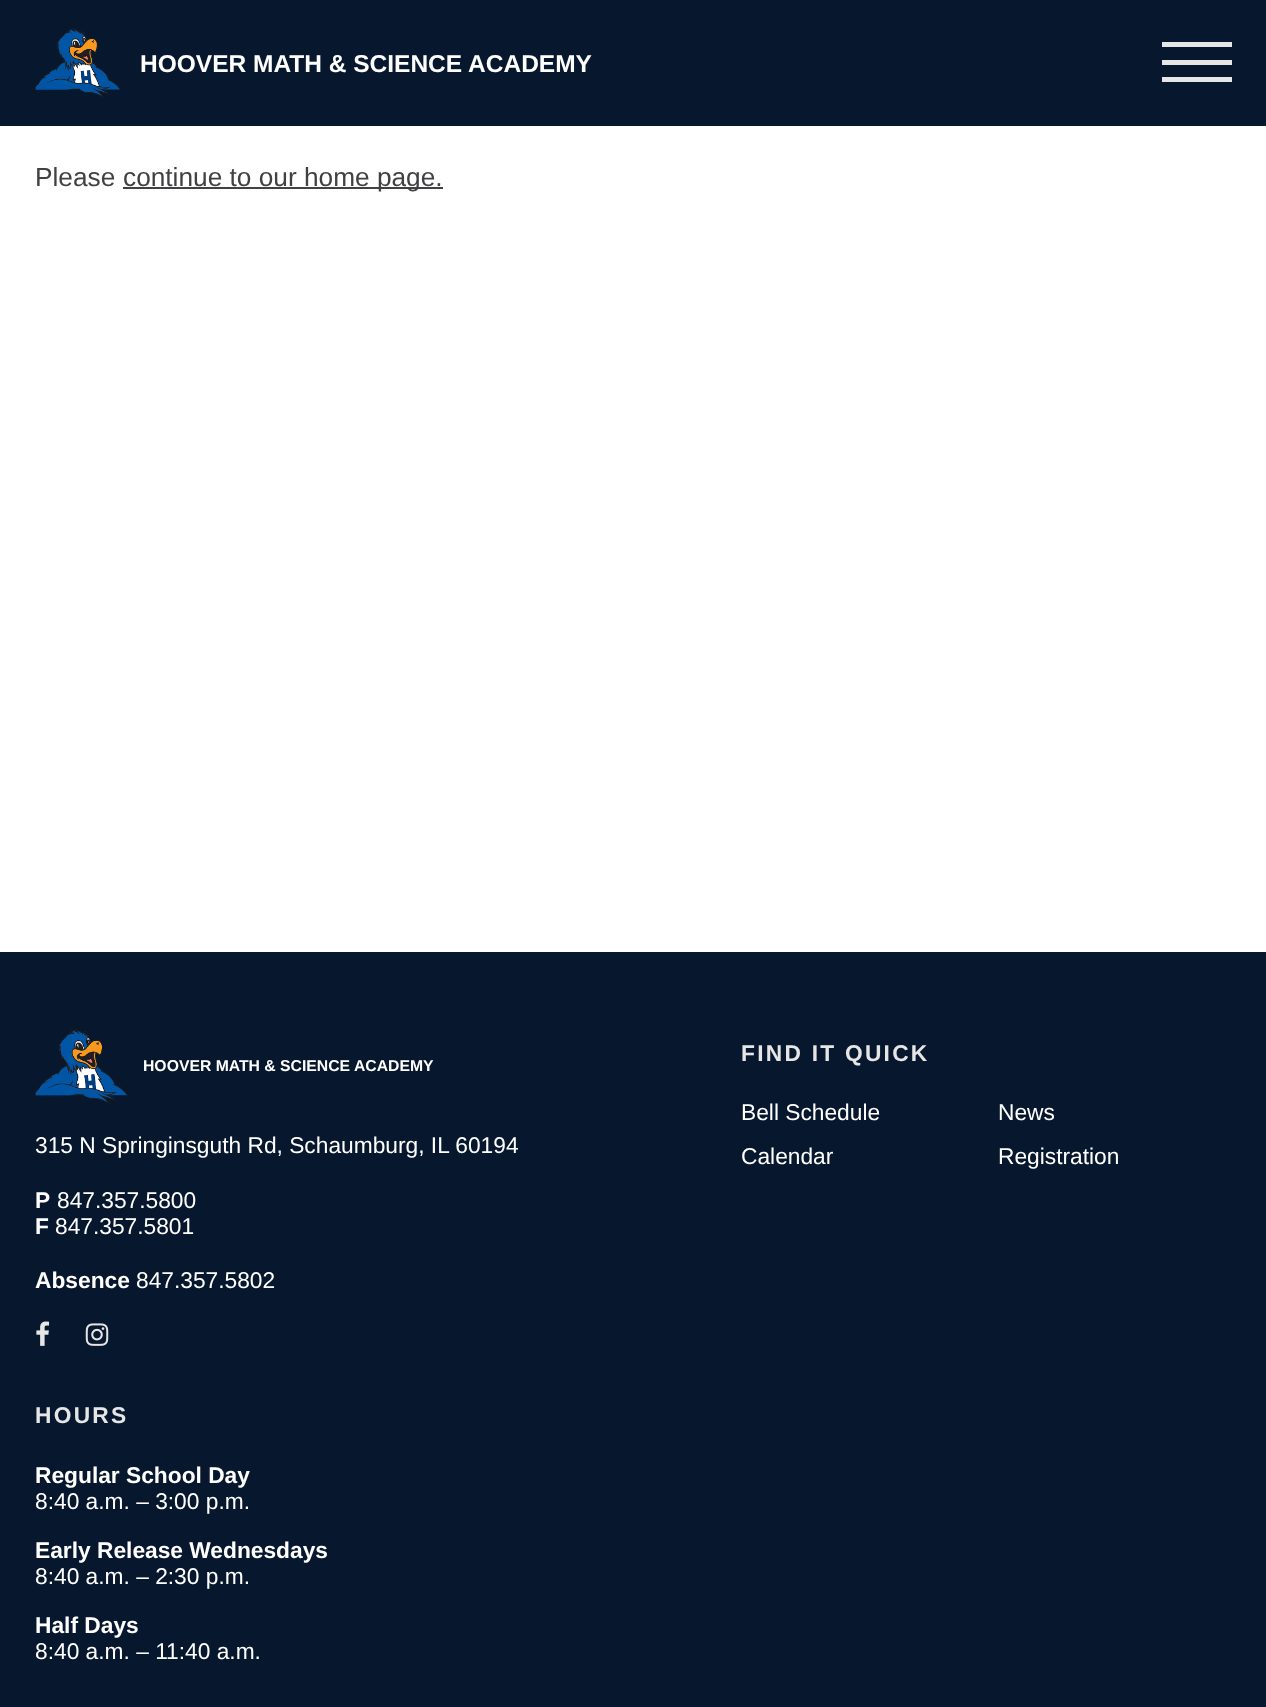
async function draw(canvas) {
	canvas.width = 1266;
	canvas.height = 1707;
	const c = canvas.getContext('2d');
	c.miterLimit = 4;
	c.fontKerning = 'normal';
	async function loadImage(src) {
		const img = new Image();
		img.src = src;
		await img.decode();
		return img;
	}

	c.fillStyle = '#fff';
	c.fillRect(0, 0, 1266, 1707);
	c.fillStyle = '#07172e';
	c.fillRect(0, 0, 1266, 126);
	c.drawImage(await loadImage('img1.png'), 35, 28, 86, 70);
	c.font = 'bold 24.5px Liberation Sans';
	c.fillStyle = '#fff';
	c.fillText('HOOVER MATH & SCIENCE ACADEMY', 140, 72);
	for (const [x, y, w, h, color] of [
		[1162, 60, 70, 5, '#e6e6e6'],
		[1162, 42, 70, 5, '#e6e6e6'],
		[1162, 77, 70, 5, '#e6e6e6'],
	]) {
		c.fillStyle = color;
		c.fillRect(x, y, w, h);
	}
	c.font = '26.25px Liberation Sans';
	c.fillStyle = '#414042';
	c.fillText('Please', 35, 186);
	c.fillRect(123, 187, 320, 2);
	c.fillText('continue to our home page.', 123, 186);
	c.fillStyle = '#07172e';
	c.fillRect(0, 952, 1266, 755);
	c.drawImage(await loadImage('img2.png'), 35, 1029, 93, 76);
	c.font = 'bold 15.75px Liberation Sans';
	c.fillStyle = '#fff';
	c.fillText('HOOVER MATH & SCIENCE ACADEMY', 143, 1071);
	c.font = '22.75px Liberation Sans';
	c.fillText('315 N Springinsguth Rd, Schaumburg, IL 60194', 35, 1153);
	c.font = 'bold 22.75px Liberation Sans';
	c.fillText('P', 35, 1208);
	c.font = '22.75px Liberation Sans';
	c.fillText('847.357.5800', 57, 1208);
	c.font = 'bold 22.75px Liberation Sans';
	c.fillText('F', 35, 1234);
	c.font = '22.75px Liberation Sans';
	c.fillText('847.357.5801', 55, 1234);
	c.font = 'bold 22.75px Liberation Sans';
	c.fillText('Absence', 35, 1288);
	c.font = '22.75px Liberation Sans';
	c.fillText('847.357.5802', 136, 1288);
	c.drawImage(await loadImage('img3.png'), 36, 1321, 14, 25);
	c.drawImage(await loadImage('img4.png'), 85, 1323, 24, 23);
	c.letterSpacing = '2.25px';
	c.font = 'bold 22.75px Liberation Sans';
	c.fillStyle = '#e6e6e6';
	c.fillText('FIND IT QUICK', 741, 1061);
	c.letterSpacing = '0px';
	c.font = '22.75px Liberation Sans';
	c.fillStyle = '#fff';
	for (const [text, x, y] of [
		['Bell Schedule', 741, 1120],
		['News', 998, 1120],
		['Calendar', 741, 1164],
		['Registration', 998, 1164],
	]) {
		c.fillText(text, x, y);
	}
	c.letterSpacing = '2.25px';
	c.font = 'bold 22.75px Liberation Sans';
	c.fillStyle = '#e6e6e6';
	c.fillText('HOURS', 35, 1423);
	c.letterSpacing = '0px';
	c.fillStyle = '#fff';
	c.fillText('Regular School Day', 35, 1483);
	c.font = '22.75px Liberation Sans';
	c.fillText('8:40 a.m. – 3:00 p.m.', 35, 1509);
	c.font = 'bold 22.75px Liberation Sans';
	c.fillText('Early Release Wednesdays', 35, 1558);
	c.font = '22.75px Liberation Sans';
	c.fillText('8:40 a.m. – 2:30 p.m.', 35, 1584);
	c.font = 'bold 22.75px Liberation Sans';
	c.fillText('Half Days', 35, 1633);
	c.font = '22.75px Liberation Sans';
	c.fillText('8:40 a.m. – 11:40 a.m.', 35, 1659);
}

draw(document.querySelector('canvas'));
